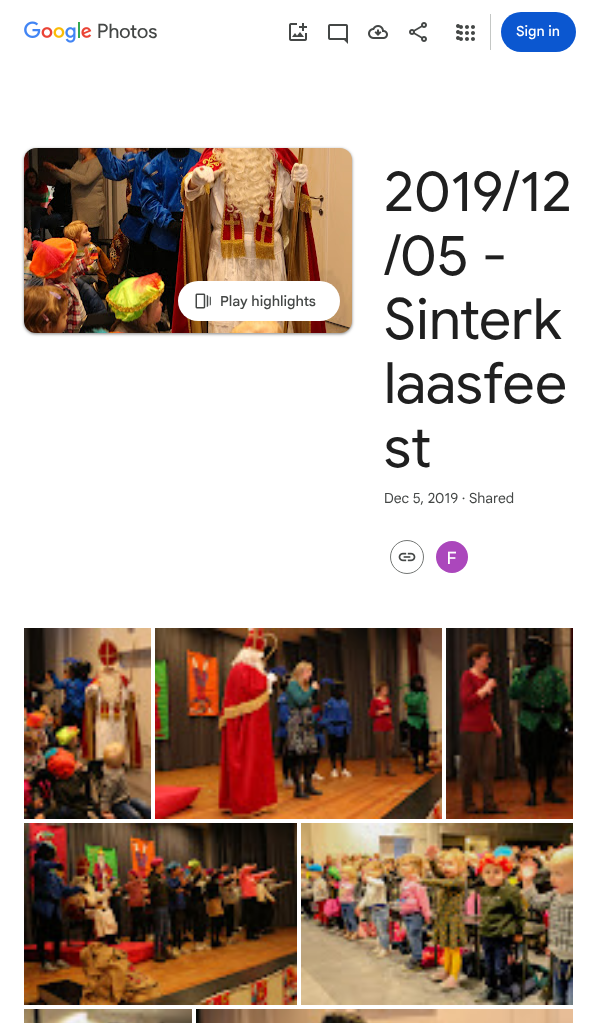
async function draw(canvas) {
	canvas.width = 612;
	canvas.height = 1023;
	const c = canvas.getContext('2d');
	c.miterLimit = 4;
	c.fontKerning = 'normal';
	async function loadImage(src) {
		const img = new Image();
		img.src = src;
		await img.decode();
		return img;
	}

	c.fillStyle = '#fff';
	c.fillRect(0, 0, 612, 1023);
	c.drawImage(await loadImage('img1.png'), 24, 21, 68, 22);
	c.font = '20px Product Sans';
	c.fillStyle = '#444746';
	c.fillText('Photos', 97, 38);
	c.drawImage(await loadImage('img2.png'), 289, 23, 18, 18);
	c.drawImage(await loadImage('img3.png'), 328, 24, 20, 20);
	c.drawImage(await loadImage('img4.png'), 368, 25, 20, 14);
	c.drawImage(await loadImage('img5.png'), 409, 22, 18, 20);
	c.drawImage(await loadImage('img6.png'), 456, 24, 4, 16);
	c.fillStyle = '#c4c7c5';
	c.fillRect(490, 14, 1, 36);
	c.fillStyle = '#00000026';
	c.filter = 'blur(1.5px)';
	c.beginPath();
	c.roundRect(23, 148, 330, 187, 13);
	c.fill();
	c.filter = 'none';
	c.fillStyle = '#0000004d';
	c.filter = 'blur(1px)';
	c.beginPath();
	c.roundRect(24, 149, 328, 185, 12);
	c.fill();
	c.filter = 'none';
	c.drawImage(await loadImage('img7.png'), 24, 148, 328, 185);
	c.fillStyle = '#fff';
	c.beginPath();
	c.roundRect(178, 281, 162, 40, 20);
	c.fill();
	c.drawImage(await loadImage('img8.png'), 195, 293, 16, 16);
	c.font = '500 14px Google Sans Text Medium';
	c.fillStyle = '#444746';
	c.fillText('Play highlights', 220, 306);
	c.font = '57px Google Sans';
	c.fillStyle = '#1f1f1f';
	for (const [text, x, y] of [
		['2019/12', 384, 211],
		['/05 -', 384, 275],
		['Sinterk', 384, 339],
		['laasfee', 384, 403],
		['st', 384, 467],
	]) {
		c.fillText(text, x, y);
	}
	c.font = '14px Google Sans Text';
	c.fillStyle = '#444746';
	c.fillText('Dec 5, 2019 · Shared', 384, 503);
	c.beginPath();
	c.arc(407, 557, 16.5, 0, 2 * Math.PI);
	c.strokeStyle = '#747775';
	c.stroke();
	c.drawImage(await loadImage('img9.png'), 398, 552, 18, 10);
	c.drawImage(await loadImage('img10.png'), 436, 541, 32, 32);
	c.drawImage(await loadImage('img11.png'), 24, 628, 127, 191);
	c.drawImage(await loadImage('img12.png'), 155, 628, 287, 191);
	c.drawImage(await loadImage('img13.png'), 446, 628, 127, 191);
	c.drawImage(await loadImage('img14.png'), 24, 823, 273, 182);
	c.drawImage(await loadImage('img15.png'), 301, 823, 272, 182);
	c.drawImage(await loadImage('img16.png'), 24, 1009, 168, 14);
	c.drawImage(await loadImage('img17.png'), 196, 1009, 377, 14);
	c.drawImage(await loadImage('img18.png'), 459, 25, 16, 16);
	c.fillStyle = '#0b57d0';
	c.beginPath();
	c.roundRect(501, 12, 75, 40, 20);
	c.fill();
	c.font = '500 14px Google Sans Text Medium';
	c.fillStyle = '#fff';
	c.fillText('Sign in', 516, 36);
}

draw(document.querySelector('canvas'));
